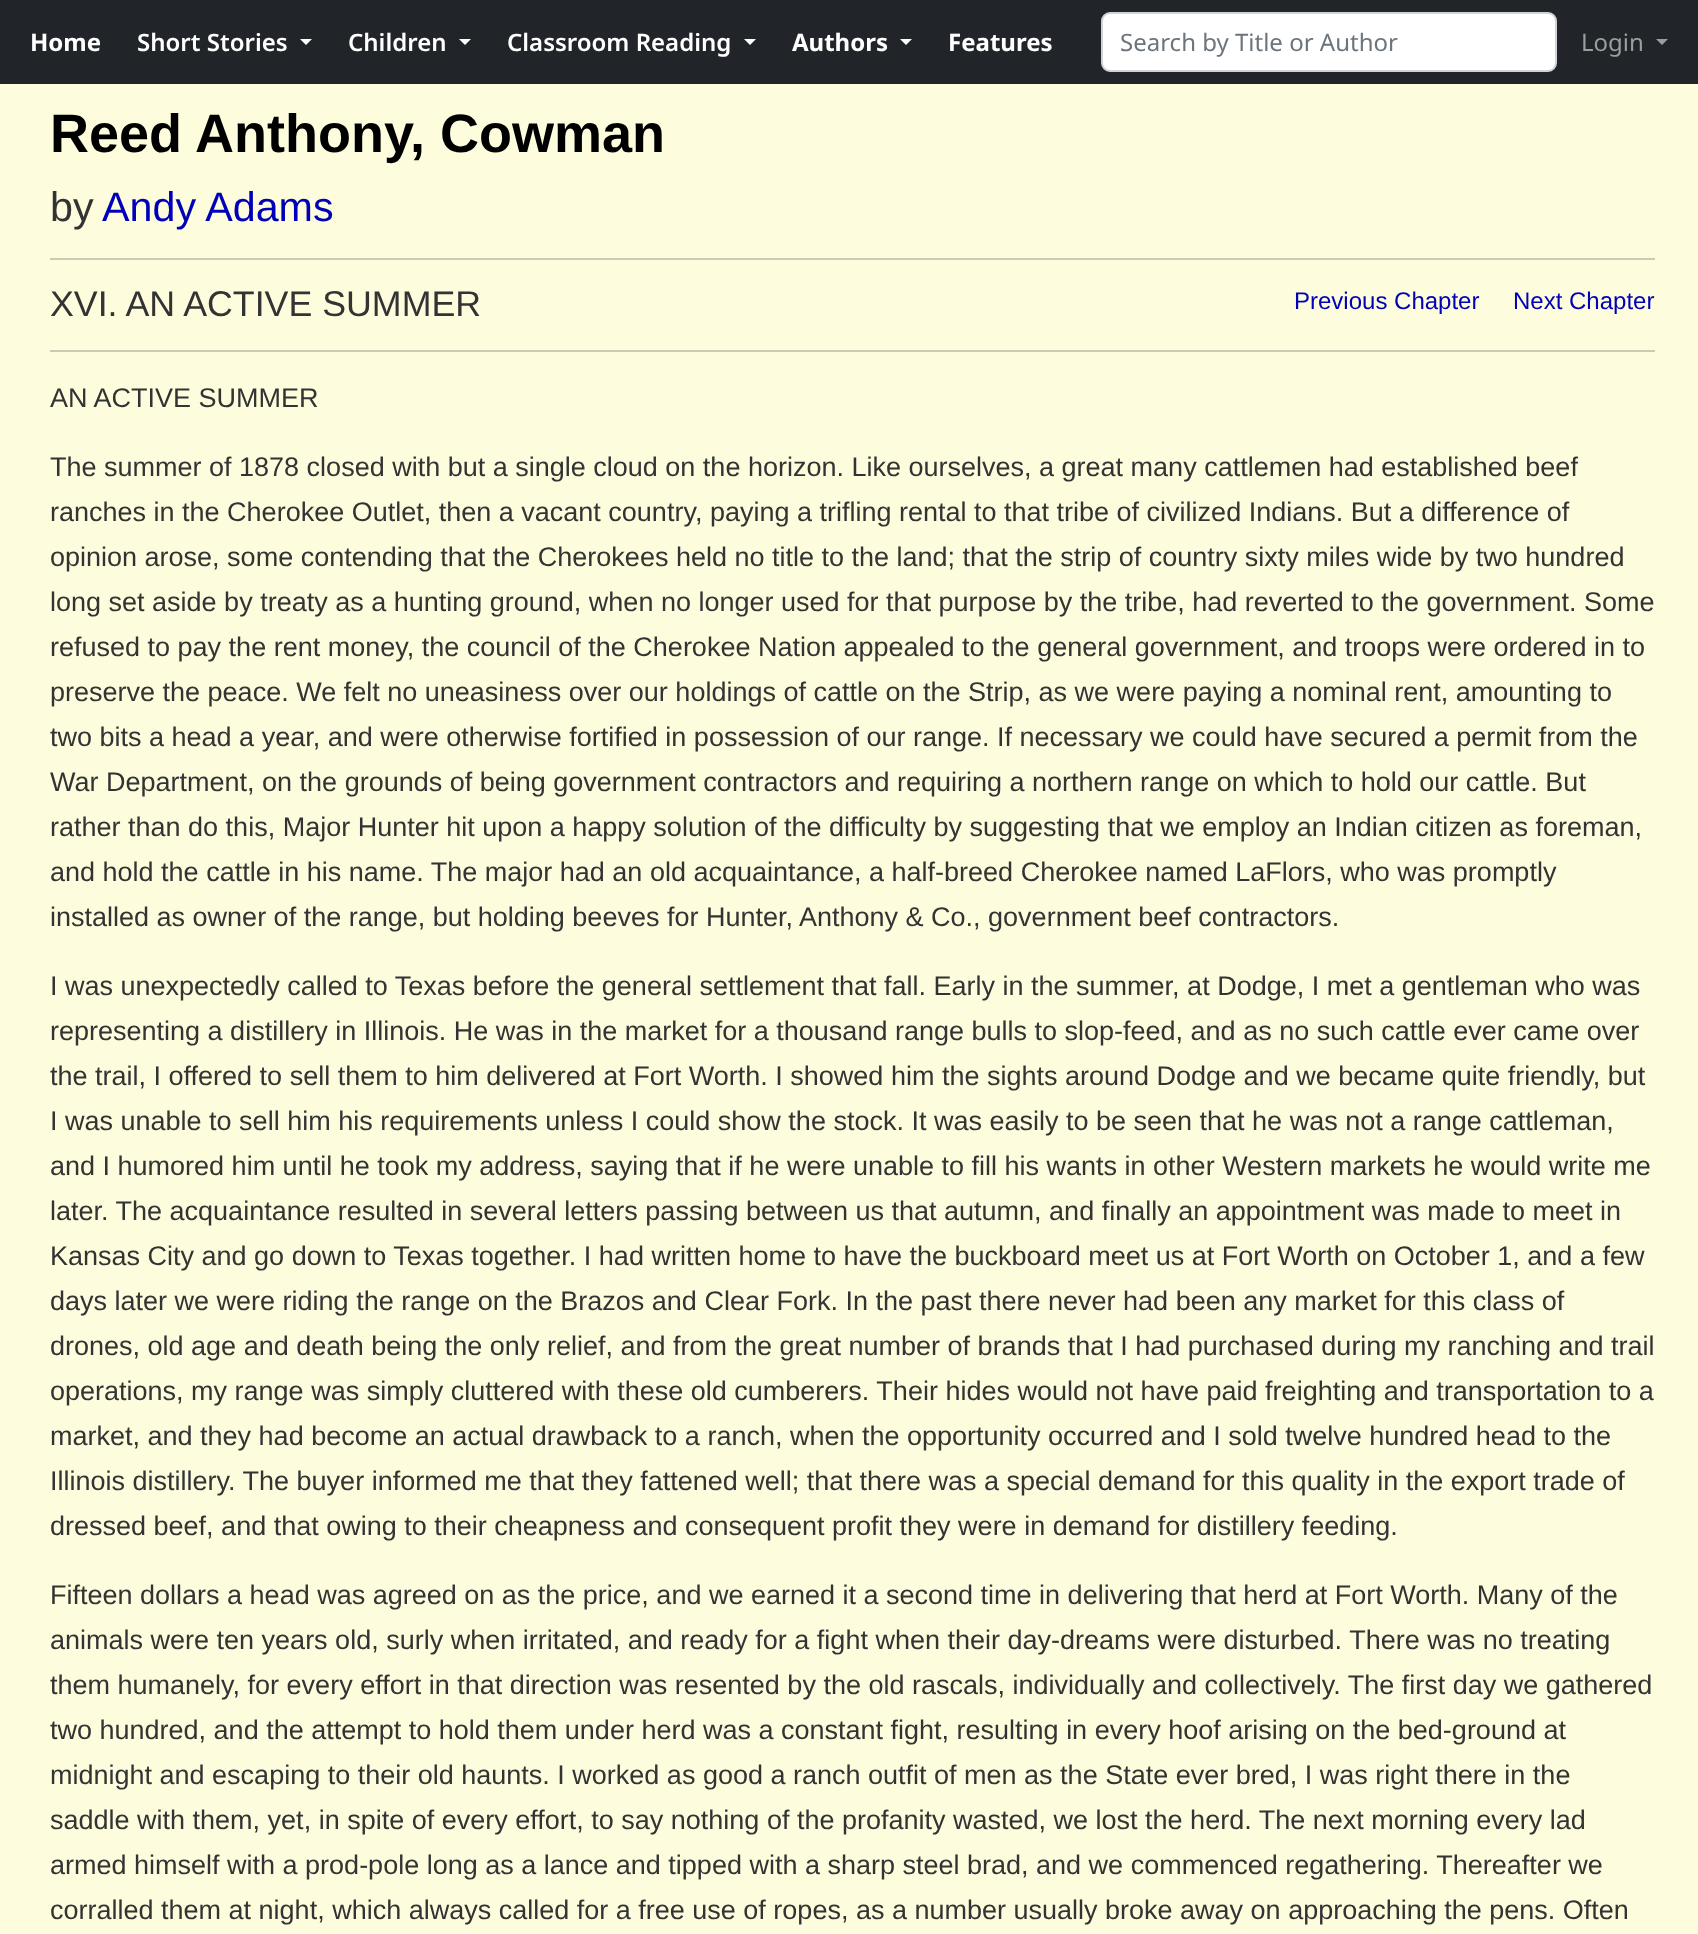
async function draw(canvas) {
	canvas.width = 1698;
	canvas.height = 1934;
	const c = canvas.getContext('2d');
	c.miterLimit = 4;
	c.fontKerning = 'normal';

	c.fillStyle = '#fdfcdc';
	c.fillRect(0, 0, 1698, 1934);
	c.fillStyle = '#212529';
	c.fillRect(0, 0, 1698, 84);
	c.font = 'bold 24px Noto Sans';
	c.fillStyle = '#fff';
	c.fillText('Home', 30, 51);
	c.font = '600 24px Noto Sans';
	c.fillText('Short Stories', 137, 51);
	c.beginPath();
	c.moveTo(300, 39);
	c.lineTo(312, 39);
	c.lineTo(306, 45);
	c.closePath();
	c.fill();
	c.fillText('Children', 348, 51);
	c.beginPath();
	c.moveTo(459, 39);
	c.lineTo(471, 39);
	c.lineTo(465, 45);
	c.closePath();
	c.fill();
	c.fillText('Classroom Reading', 507, 51);
	c.beginPath();
	c.moveTo(744, 39);
	c.lineTo(756, 39);
	c.lineTo(750, 45);
	c.closePath();
	c.fill();
	c.font = 'bold 24px Noto Sans';
	c.fillText('Authors', 792, 51);
	c.beginPath();
	c.moveTo(900, 39);
	c.lineTo(912, 39);
	c.lineTo(906, 45);
	c.closePath();
	c.fill();
	c.fillText('Features', 948, 51);
	c.beginPath();
	c.roundRect(1102, 13, 454, 58, 8);
	c.fill();
	c.strokeStyle = '#ced4da';
	c.lineWidth = 2;
	c.stroke();
	c.font = '24px Noto Sans';
	c.fillStyle = '#6c757d';
	c.fillText('Search by Title or Author', 1120, 51);
	c.fillStyle = '#9b9d9f';
	c.fillText('Login', 1581, 51);
	c.beginPath();
	c.moveTo(1656, 39);
	c.lineTo(1668, 39);
	c.lineTo(1662, 45);
	c.closePath();
	c.fill();
	c.font = 'bold 54px Liberation Sans';
	c.fillStyle = '#000';
	c.fillText('Reed Anthony, Cowman', 50, 152);
	c.font = '41.25px Liberation Sans';
	c.fillStyle = '#333';
	c.fillText('by', 50, 221);
	c.fillStyle = '#0000b8';
	c.fillText('Andy Adams', 102, 221);
	c.fillStyle = '#cbcab2';
	c.fillRect(50, 258, 1605, 2);
	c.font = '35.75px Liberation Sans';
	c.fillStyle = '#333';
	c.fillText('XVI. AN ACTIVE SUMMER', 50, 316);
	c.font = '24px Liberation Sans';
	c.fillStyle = '#0000b8';
	c.fillText('Previous Chapter', 1294, 309);
	c.fillText('Next Chapter', 1513, 309);
	c.fillStyle = '#cbcab2';
	c.fillRect(50, 350, 1605, 2);
	c.font = '27px Liberation Sans';
	c.fillStyle = '#333';
	for (const [text, x, y] of [
		['AN ACTIVE SUMMER', 50, 407],
		['The summer of 1878 closed with but a single cloud on the horizon. Like ourselves, a great many cattlemen had established beef', 50, 476],
		['ranches in the Cherokee Outlet, then a vacant country, paying a trifling rental to that tribe of civilized Indians. But a difference of', 50, 521],
		['opinion arose, some contending that the Cherokees held no title to the land; that the strip of country sixty miles wide by two hundred', 50, 566],
		['long set aside by treaty as a hunting ground, when no longer used for that purpose by the tribe, had reverted to the government. Some', 50, 611],
		['refused to pay the rent money, the council of the Cherokee Nation appealed to the general government, and troops were ordered in to', 50, 656],
		['preserve the peace. We felt no uneasiness over our holdings of cattle on the Strip, as we were paying a nominal rent, amounting to', 50, 701],
		['two bits a head a year, and were otherwise fortified in possession of our range. If necessary we could have secured a permit from the', 50, 746],
		['War Department, on the grounds of being government contractors and requiring a northern range on which to hold our cattle. But', 50, 791],
		['rather than do this, Major Hunter hit upon a happy solution of the difficulty by suggesting that we employ an Indian citizen as foreman,', 50, 836],
		['and hold the cattle in his name. The major had an old acquaintance, a half-breed Cherokee named LaFlors, who was promptly', 50, 881],
		['installed as owner of the range, but holding beeves for Hunter, Anthony & Co., government beef contractors.', 50, 926],
		['I was unexpectedly called to Texas before the general settlement that fall. Early in the summer, at Dodge, I met a gentleman who was', 50, 995],
		['representing a distillery in Illinois. He was in the market for a thousand range bulls to slop-feed, and as no such cattle ever came over', 50, 1040],
		['the trail, I offered to sell them to him delivered at Fort Worth. I showed him the sights around Dodge and we became quite friendly, but', 50, 1085],
		['I was unable to sell him his requirements unless I could show the stock. It was easily to be seen that he was not a range cattleman,', 50, 1130],
		['and I humored him until he took my address, saying that if he were unable to fill his wants in other Western markets he would write me', 50, 1175],
		['later. The acquaintance resulted in several letters passing between us that autumn, and finally an appointment was made to meet in', 50, 1220],
		['Kansas City and go down to Texas together. I had written home to have the buckboard meet us at Fort Worth on October 1, and a few', 50, 1265],
		['days later we were riding the range on the Brazos and Clear Fork. In the past there never had been any market for this class of', 50, 1310],
		['drones, old age and death being the only relief, and from the great number of brands that I had purchased during my ranching and trail', 50, 1355],
		['operations, my range was simply cluttered with these old cumberers. Their hides would not have paid freighting and transportation to a', 50, 1400],
		['market, and they had become an actual drawback to a ranch, when the opportunity occurred and I sold twelve hundred head to the', 50, 1445],
		['Illinois distillery. The buyer informed me that they fattened well; that there was a special demand for this quality in the export trade of', 50, 1490],
		['dressed beef, and that owing to their cheapness and consequent profit they were in demand for distillery feeding.', 50, 1535],
		['Fifteen dollars a head was agreed on as the price, and we earned it a second time in delivering that herd at Fort Worth. Many of the', 50, 1604],
		['animals were ten years old, surly when irritated, and ready for a fight when their day-dreams were disturbed. There was no treating', 50, 1649],
		['them humanely, for every effort in that direction was resented by the old rascals, individually and collectively. The first day we gathered', 50, 1694],
		['two hundred, and the attempt to hold them under herd was a constant fight, resulting in every hoof arising on the bed-ground at', 50, 1739],
		['midnight and escaping to their old haunts. I worked as good a ranch outfit of men as the State ever bred, I was right there in the', 50, 1784],
		['saddle with them, yet, in spite of every effort, to say nothing of the profanity wasted, we lost the herd. The next morning every lad', 50, 1829],
		['armed himself with a prod-pole long as a lance and tipped with a sharp steel brad, and we commenced regathering. Thereafter we', 50, 1874],
		['corralled them at night, which always called for a free use of ropes, as a number usually broke away on approaching the pens. Often', 50, 1919],
	]) {
		c.fillText(text, x, y);
	}
}

draw(document.querySelector('canvas'));
